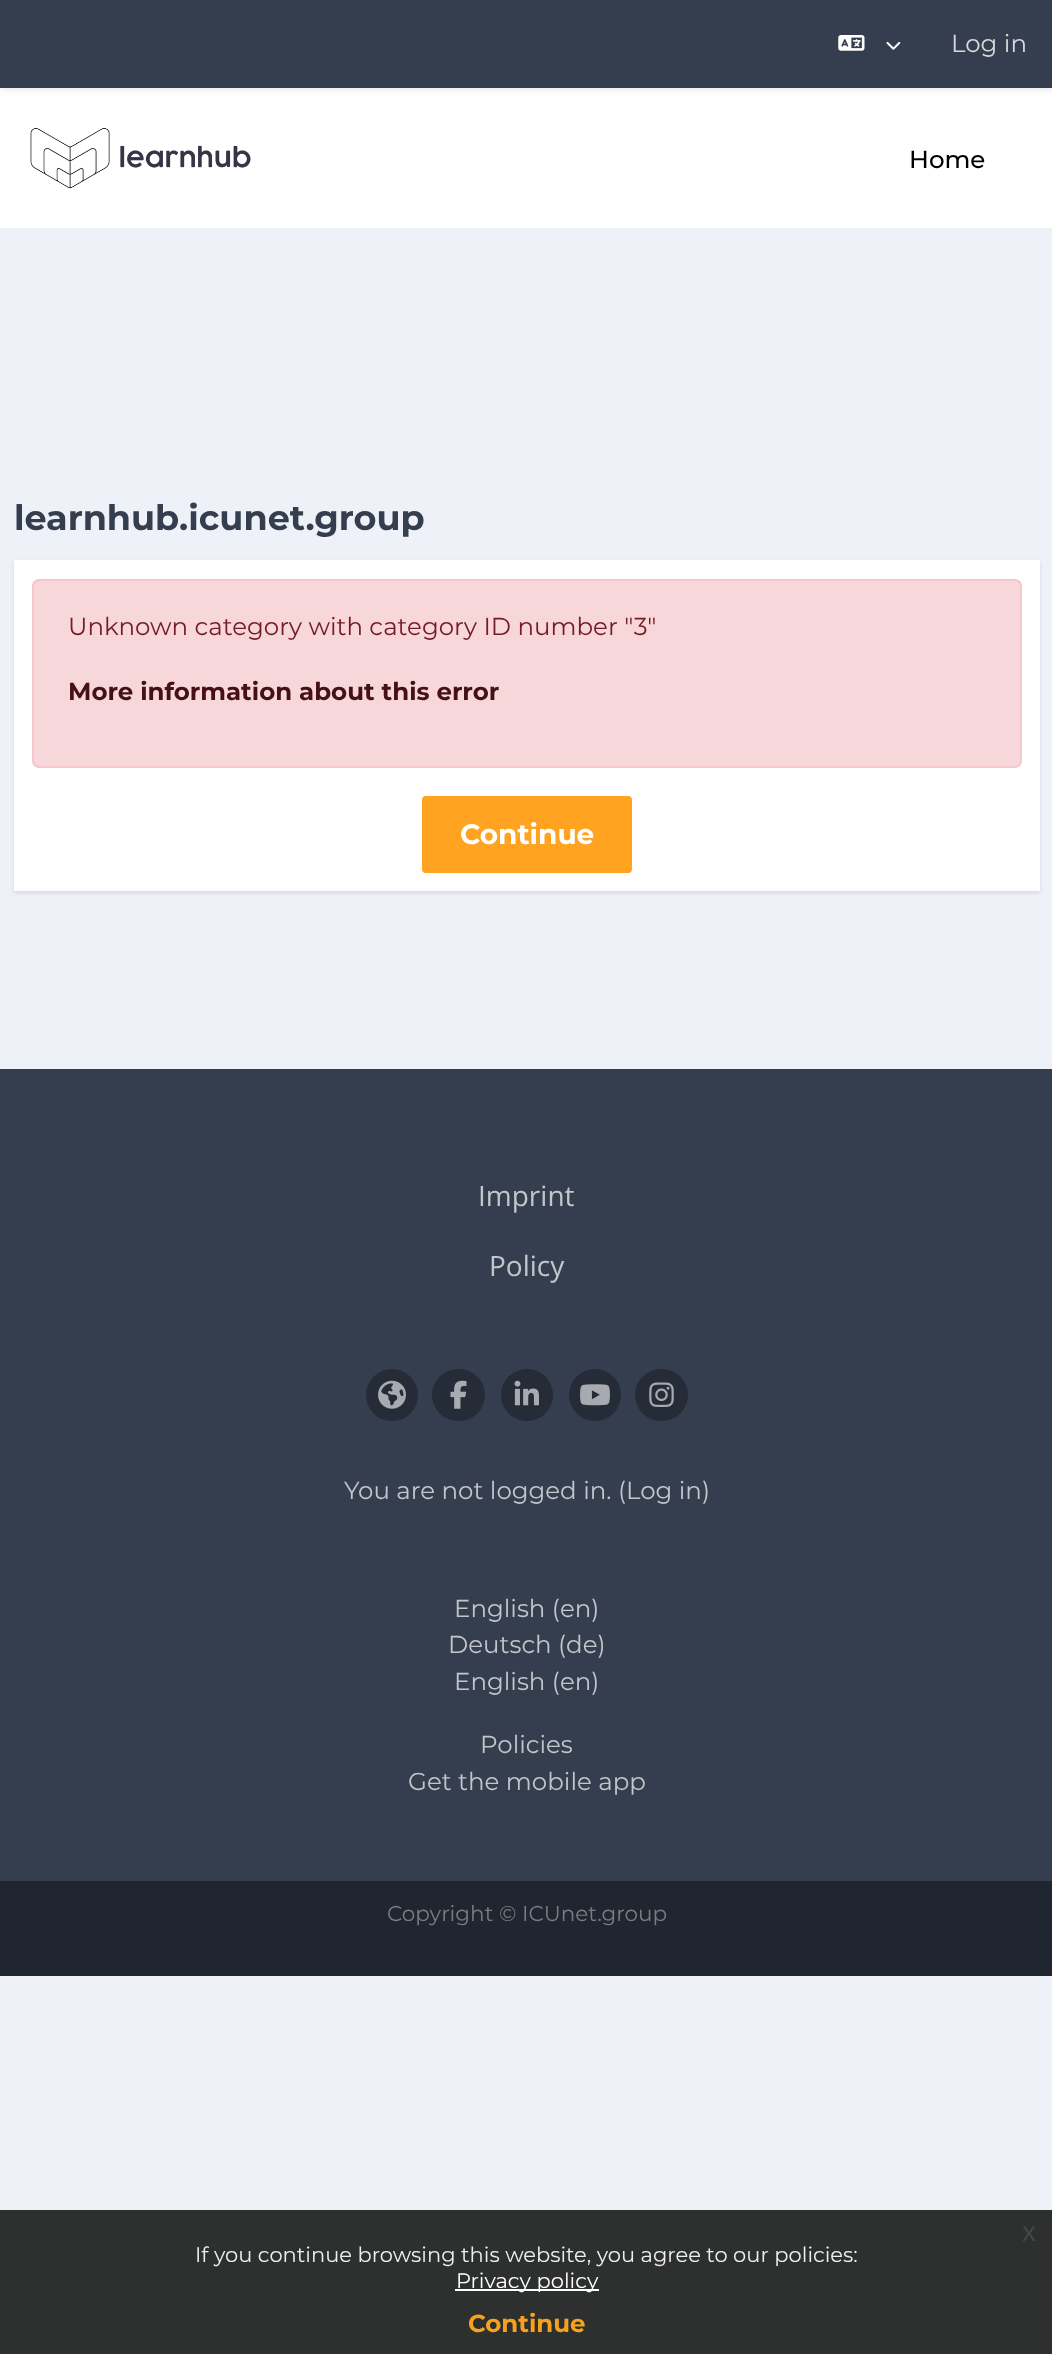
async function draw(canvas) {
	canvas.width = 1052;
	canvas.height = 2354;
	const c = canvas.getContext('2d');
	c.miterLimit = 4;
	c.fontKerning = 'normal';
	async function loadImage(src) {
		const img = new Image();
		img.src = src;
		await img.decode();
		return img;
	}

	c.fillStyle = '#eef2f8';
	c.fillRect(0, 0, 1052, 2354);
	c.fillStyle = '#fff';
	c.fillRect(0, 88, 1052, 140);
	c.fillStyle = '#0000001a';
	c.filter = 'blur(3.5px)';
	c.beginPath();
	c.rect(0, 2, 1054, 87);
	c.fill();
	c.filter = 'none';
	c.fillStyle = '#353e4e';
	c.fillRect(0, 0, 1052, 88);
	c.drawImage(await loadImage('img1.png'), 838, 35, 27, 16);
	c.drawImage(await loadImage('img2.png'), 886, 41, 15, 9);
	c.font = '24.5px Montserrat';
	c.fillStyle = '#d7d8dc';
	c.fillText('Log in', 951, 52);
	c.drawImage(await loadImage('img3.png'), 30, 127, 221, 62);
	c.font = '500 24.5px Montserrat';
	c.fillStyle = '#000';
	c.fillText('Home', 909, 168);
	c.font = 'bold 35px Montserrat';
	c.fillStyle = '#353e4e';
	c.fillText('learnhub.icunet.group', 14, 530);
	c.fillStyle = '#0000001a';
	c.filter = 'blur(2px)';
	c.beginPath();
	c.rect(14, 562, 1026, 331);
	c.fill();
	c.filter = 'none';
	c.fillStyle = '#fff';
	c.fillRect(14, 560, 1026, 331);
	c.fillStyle = '#f8d7da';
	c.beginPath();
	c.roundRect(33, 580, 988, 187, 6);
	c.fill();
	c.strokeStyle = '#f5c6cb';
	c.lineWidth = 2;
	c.stroke();
	c.font = '24.5px Montserrat';
	c.fillStyle = '#721c24';
	c.fillText('Unknown category with category ID number "3"', 68, 635);
	c.font = 'bold 24.5px Montserrat';
	c.fillStyle = '#451116';
	c.fillText('More information about this error', 68, 700);
	c.fillStyle = '#ffa321';
	c.beginPath();
	c.roundRect(424, 798, 206, 73, 2);
	c.fill();
	c.strokeStyle = '#ffa321';
	c.lineWidth = 4;
	c.stroke();
	c.font = 'bold 28px Montserrat';
	c.fillStyle = '#fff';
	c.fillText('Continue', 460, 844);
	c.fillStyle = '#353e4e';
	c.fillRect(0, 1069, 1052, 812);
	c.font = '28px Open Sans';
	c.fillStyle = '#c2c5ca';
	c.fillText('Imprint', 478, 1206);
	c.fillText('Policy', 489, 1276);
	c.fillStyle = '#252b37';
	c.beginPath();
	c.arc(392, 1395, 26, 0, 2 * Math.PI);
	c.fill();
	c.drawImage(await loadImage('img4.png'), 378, 1380, 28, 29);
	c.beginPath();
	c.roundRect(432, 1369, 53, 52, 26);
	c.fill();
	c.drawImage(await loadImage('img5.png'), 450, 1380, 17, 29);
	c.beginPath();
	c.arc(527, 1395, 26, 0, 2 * Math.PI);
	c.fill();
	c.drawImage(await loadImage('img6.png'), 514, 1380, 25, 26);
	c.beginPath();
	c.arc(595, 1395, 26, 0, 2 * Math.PI);
	c.fill();
	c.drawImage(await loadImage('img7.png'), 580, 1384, 30, 22);
	c.beginPath();
	c.roundRect(635, 1369, 53, 52, 26);
	c.fill();
	c.drawImage(await loadImage('img8.png'), 649, 1382, 25, 25);
	c.font = '24.5px Montserrat';
	c.fillStyle = '#c2c5ca';
	for (const [text, x, y] of [
		['You are not logged in. (Log in)', 344, 1499],
		['English (en)', 454, 1617],
		['Deutsch (de)', 448, 1653],
		['English (en)', 454, 1690],
		['Policies', 480, 1753],
		['Get the mobile app', 408, 1790],
	]) {
		c.fillText(text, x, y);
	}
	c.fillStyle = '#202630';
	c.fillRect(0, 1881, 1052, 95);
	c.font = '21.5px Montserrat';
	c.fillStyle = '#797d83';
	c.fillText('Copyright © ICUnet.group', 387, 1921);
	c.fillStyle = '#2e2f2f';
	c.fillRect(0, 2210, 1052, 144);
	c.font = '28px Liberation Sans';
	c.fillStyle = '#454646';
	c.fillText('x', 1022, 2241);
	c.font = '21px Montserrat';
	c.fillStyle = '#efefef';
	c.fillText('If you continue browsing this website, you agree to our policies:', 195, 2262);
	c.fillStyle = '#fff';
	c.fillRect(455, 2289, 144, 2);
	c.fillText('Privacy policy', 456, 2288);
	c.font = 'bold 24.5px Montserrat';
	c.fillStyle = '#f6a21d';
	c.fillText('Continue', 468, 2332);
}

draw(document.querySelector('canvas'));
